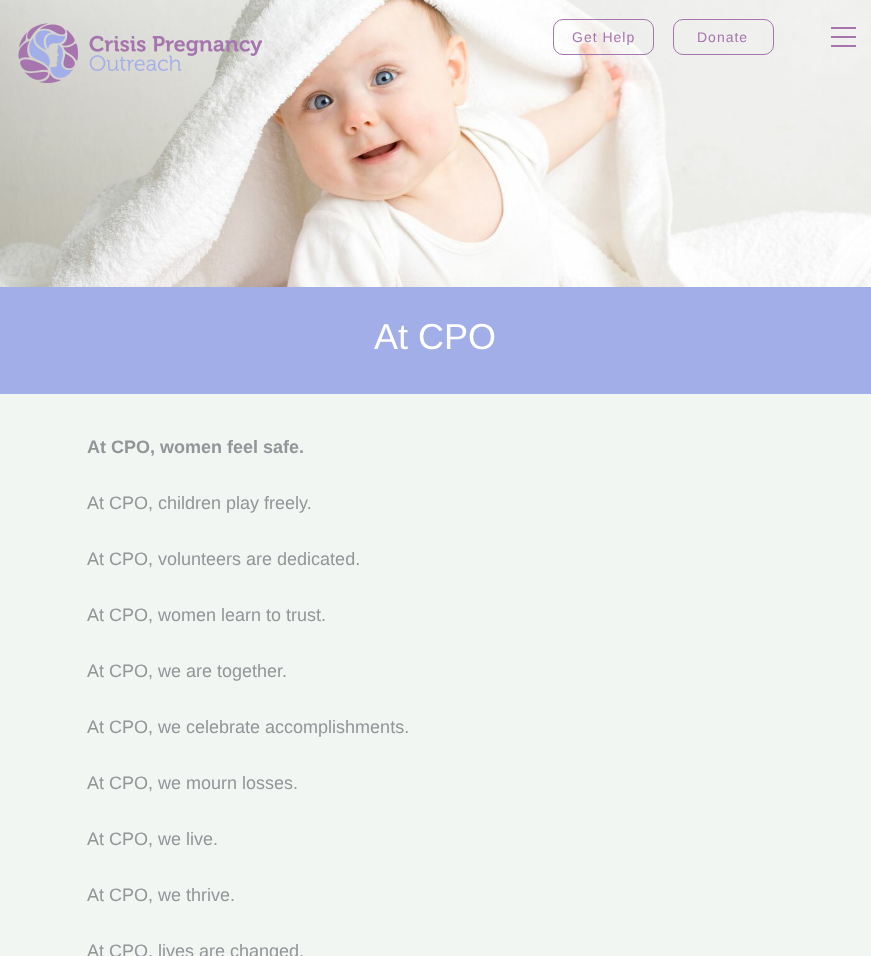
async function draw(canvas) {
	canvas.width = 871;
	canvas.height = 956;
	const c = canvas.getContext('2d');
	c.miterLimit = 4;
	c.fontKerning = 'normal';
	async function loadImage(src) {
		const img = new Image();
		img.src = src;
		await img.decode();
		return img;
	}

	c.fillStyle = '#f2f6f3';
	c.fillRect(0, 0, 871, 956);
	c.drawImage(await loadImage('img1.png'), 0, 0, 871, 287);
	c.drawImage(await loadImage('img2.png'), 18, 23, 244, 60);
	c.beginPath();
	c.roundRect(553.5, 19.5, 100, 35, 9.5);
	c.strokeStyle = '#a675ae';
	c.stroke();
	c.letterSpacing = '1px';
	c.font = '14px Liberation Sans';
	c.fillStyle = '#a675ae';
	c.fillText('Get Help', 572, 42);
	c.beginPath();
	c.roundRect(673.5, 19.5, 100, 35, 9.5);
	c.stroke();
	c.fillText('Donate', 697, 42);
	for (const [x, y, w, h, color] of [
		[831, 27, 25, 2, '#a675ae'],
		[831, 36, 25, 2, '#a675ae'],
		[831, 45, 25, 2, '#a675ae'],
		[0, 287, 871, 107, '#a2aee8'],
	]) {
		c.fillStyle = color;
		c.fillRect(x, y, w, h);
	}
	c.letterSpacing = '0px';
	c.font = '36px Liberation Sans';
	c.fillStyle = '#fff';
	c.fillText('At CPO', 374, 349);
	c.font = 'bold 18px Liberation Sans';
	c.fillStyle = '#939598';
	c.fillText('At CPO, women feel safe.', 87, 453);
	c.font = '18px Liberation Sans';
	for (const [text, x, y] of [
		['At CPO, children play freely.', 87, 509],
		['At CPO, volunteers are dedicated.', 87, 565],
		['At CPO, women learn to trust.', 87, 621],
		['At CPO, we are together.', 87, 677],
		['At CPO, we celebrate accomplishments.', 87, 733],
		['At CPO, we mourn losses.', 87, 789],
		['At CPO, we live.', 87, 845],
		['At CPO, we thrive.', 87, 901],
		['At CPO, lives are changed.', 87, 957],
	]) {
		c.fillText(text, x, y);
	}
}

draw(document.querySelector('canvas'));
